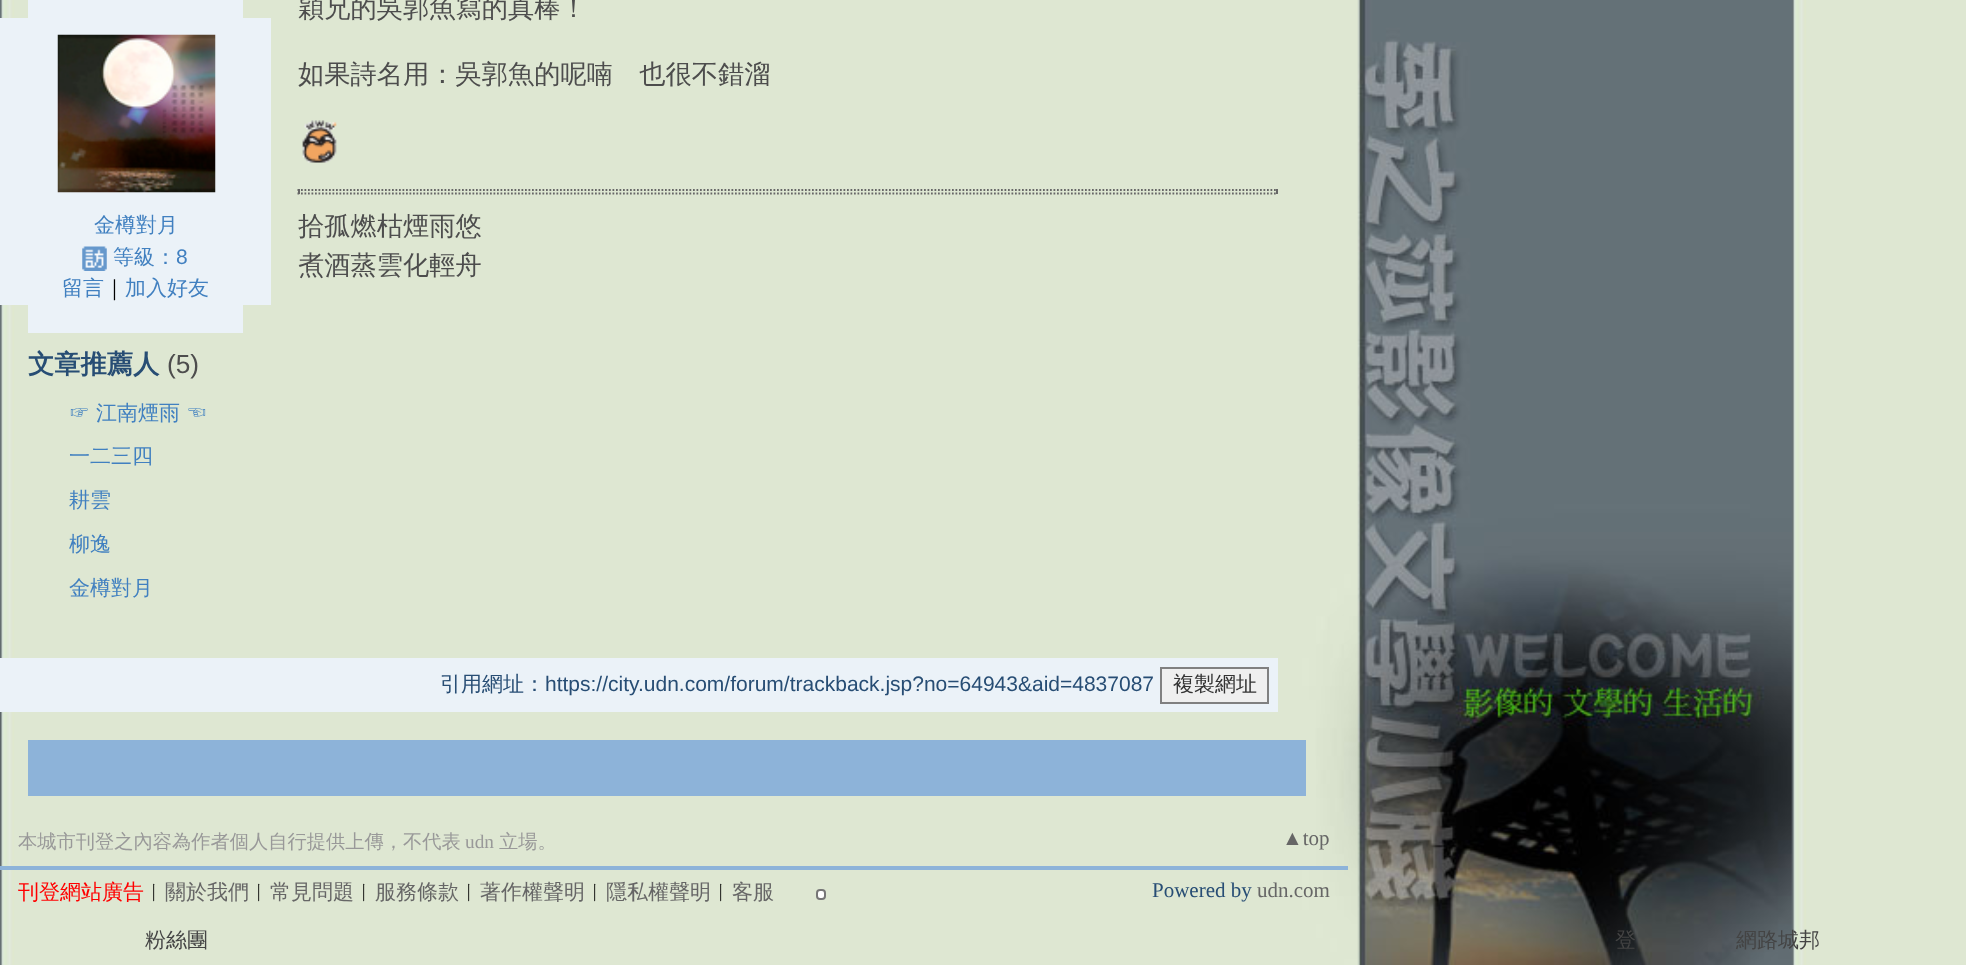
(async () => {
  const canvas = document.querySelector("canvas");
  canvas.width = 1966;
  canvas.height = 965;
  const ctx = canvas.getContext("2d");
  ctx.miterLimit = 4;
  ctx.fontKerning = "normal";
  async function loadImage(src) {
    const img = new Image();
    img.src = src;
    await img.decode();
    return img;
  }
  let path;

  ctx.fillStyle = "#ffffff";
  ctx.fillRect(0, 0, 1966, 965);
  ctx.drawImage(await loadImage("img/1.png"), 0, 0, 1966, 965);
  ctx.drawImage(await loadImage("img/2.png"), 302, 120, 35, 43);
  path = new Path2D("M297.5 190H1277.5");
  ctx.strokeStyle = "#666666";
  ctx.lineWidth = 1.8;
  ctx.setLineDash([1.75, 1.75]);
  ctx.stroke(path);
  ctx.fillStyle = "#666666";
  ctx.fillRect(1276, 189, 2, 5);
  path = new Path2D("M297.5 193.5H1277.5");
  ctx.stroke(path);
  for (const [x, y, w, h, color] of [
    [298, 189, 2, 5, "#666666"],
    [28, 0, 215, 18, "#ebf2f8"],
    [0, 18, 271, 287, "#ebf2f8"],
  ]) {
    ctx.fillStyle = color;
    ctx.fillRect(x, y, w, h);
  }
  ctx.drawImage(await loadImage("img/3.png"), 57, 34, 159, 159);
  ctx.drawImage(await loadImage("img/4.png"), 82, 246, 25, 25);
  ctx.fillRect(28, 305, 215, 28);
  ctx.fillRect(0, 658, 1278, 54);
  ctx.fillStyle = "#efefef";
  ctx.beginPath();
  ctx.rect(1161, 668, 107, 35);
  ctx.fill();
  ctx.strokeStyle = "#808080";
  ctx.lineWidth = 2;
  ctx.setLineDash([]);
  ctx.stroke();
  ctx.fillStyle = "#8db3d9";
  ctx.fillRect(28, 740, 1278, 56);
  ctx.fillRect(0, 866, 1348, 4);
  ctx.fillStyle = "#ffffff";
  ctx.beginPath();
  ctx.roundRect(817, 890, 8, 9, 3);
  ctx.fill();
  ctx.strokeStyle = "#767676";
  ctx.stroke();
  ctx.font = "500 26.25px WenQuanYi Zen Hei";
  ctx.fillStyle = "#4d4d4d";
  for (const [text, x, y] of [
    ["穎兄的吳郭魚寫的真棒！", 298, 17],
    ["如果詩名用：吳郭魚的呢喃　也很不錯溜", 298, 83],
    ["拾孤燃枯煙雨悠", 298, 235],
    ["煮酒蒸雲化輕舟", 298, 274],
  ]) {
    ctx.fillText(text, x, y);
  }
  ctx.font = "500 21px WenQuanYi Zen Hei";
  ctx.fillStyle = "#4180c0";
  ctx.fillText("金樽對月", 94, 232);
  ctx.fillText("等級：", 113, 264);
  ctx.font = "21px Liberation Sans";
  ctx.fillText("8", 176, 264);
  ctx.font = "500 21px WenQuanYi Zen Hei";
  ctx.fillText("留言", 62, 295);
  ctx.fillStyle = "#000000";
  ctx.fillText("｜", 104, 295);
  ctx.fillStyle = "#4180c0";
  ctx.fillText("加入好友", 125, 295);
  ctx.font = "bold 26.25px WenQuanYi Zen Hei";
  ctx.fillStyle = "#274d74";
  ctx.fillText("文章推薦人", 28, 373);
  ctx.font = "26.25px Liberation Sans";
  ctx.fillStyle = "#4d4d4d";
  ctx.fillText("(5)", 167, 373);
  ctx.font = "500 21px WenQuanYi Zen Hei";
  ctx.fillStyle = "#4180c0";
  for (const [text, x, y] of [
    ["☞", 69, 420],
    ["江南煙雨", 96, 420],
    ["☜", 186, 420],
    ["一二三四", 69, 463],
    ["耕雲", 69, 507],
    ["柳逸", 69, 551],
    ["金樽對月", 69, 595],
  ]) {
    ctx.fillText(text, x, y);
  }
  ctx.fillStyle = "#274d74";
  ctx.fillText("引用網址：", 440, 691);
  ctx.font = "21px Liberation Sans";
  ctx.fillText("https://city.udn.com/forum/trackback.jsp?no=64943&aid=4837087", 545, 691);
  ctx.font = "500 21px WenQuanYi Zen Hei";
  ctx.fillStyle = "#333333";
  ctx.fillText("複製網址", 1173, 691);
  ctx.font = "500 19.25px WenQuanYi Zen Hei";
  ctx.fillStyle = "#999999";
  ctx.fillText("本城市刊登之內容為作者個人自行提供上傳，不代表", 18, 848);
  ctx.font = "19.25px Liberation Serif";
  ctx.fillText("udn", 465, 848);
  ctx.font = "500 19.25px WenQuanYi Zen Hei";
  ctx.fillText("立場。", 499, 848);
  ctx.font = "21px Liberation Serif";
  ctx.fillStyle = "#666666";
  ctx.fillText("▲top", 1282, 845);
  ctx.font = "500 21px WenQuanYi Zen Hei";
  ctx.fillStyle = "#ff0000";
  ctx.fillText("刊登網站廣告", 18, 899);
  ctx.fillStyle = "#000000";
  ctx.fillText("︱", 144, 899);
  ctx.fillStyle = "#666666";
  ctx.fillText("關於我們", 165, 899);
  ctx.fillStyle = "#000000";
  ctx.fillText("︱", 249, 899);
  ctx.fillStyle = "#666666";
  ctx.fillText("常見問題", 270, 899);
  ctx.fillStyle = "#000000";
  ctx.fillText("︱", 354, 899);
  ctx.fillStyle = "#666666";
  ctx.fillText("服務條款", 375, 899);
  ctx.fillStyle = "#000000";
  ctx.fillText("︱", 459, 899);
  ctx.fillStyle = "#666666";
  ctx.fillText("著作權聲明", 480, 899);
  ctx.fillStyle = "#000000";
  ctx.fillText("︱", 585, 899);
  ctx.fillStyle = "#666666";
  ctx.fillText("隱私權聲明", 606, 899);
  ctx.fillStyle = "#000000";
  ctx.fillText("︱", 711, 899);
  ctx.fillStyle = "#666666";
  ctx.fillText("客服", 732, 899);
  ctx.font = "21px Liberation Serif";
  ctx.fillStyle = "#274d74";
  ctx.fillText("Powered by", 1152, 897);
  ctx.fillStyle = "#666666";
  ctx.fillText("udn.com", 1257, 897);
  ctx.font = "500 21px WenQuanYi Zen Hei";
  ctx.fillStyle = "#444444";
  for (const [text, x, y] of [
    ["粉絲團", 145, 947],
    ["登", 1615, 947],
    ["網路城邦", 1736, 947],
  ]) {
    ctx.fillText(text, x, y);
  }
})();
